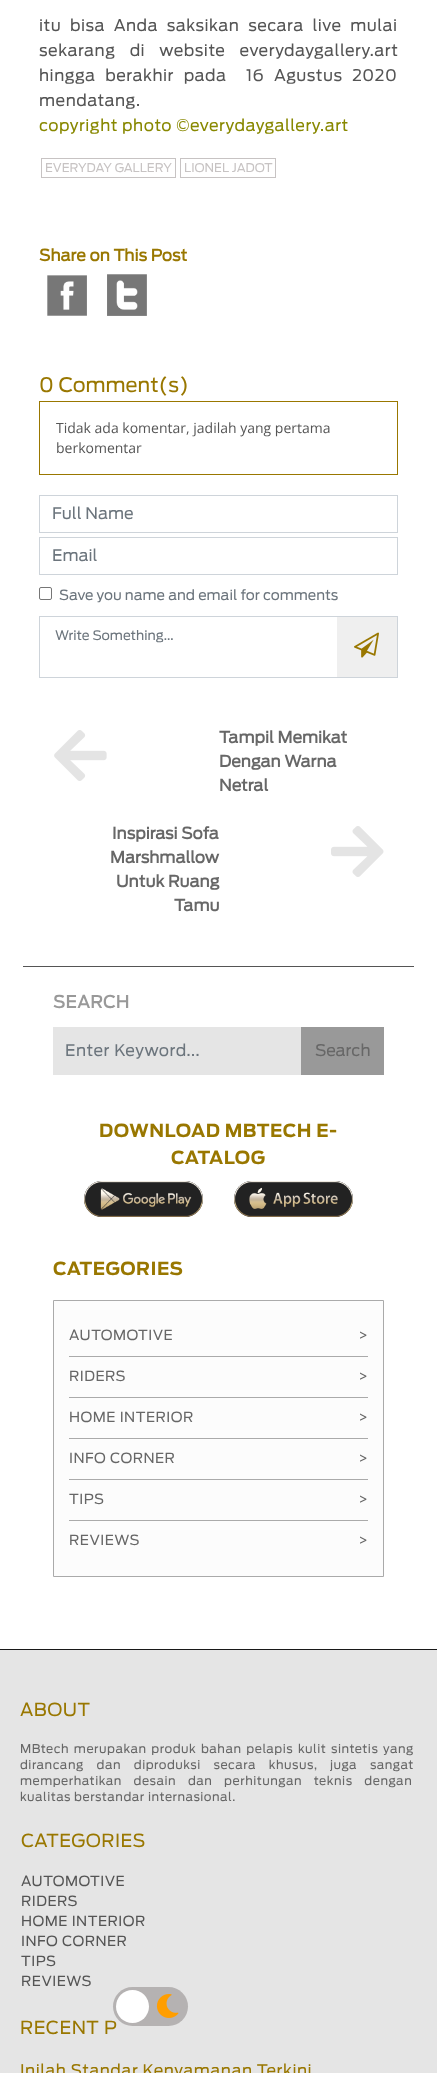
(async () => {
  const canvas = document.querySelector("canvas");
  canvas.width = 437;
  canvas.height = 2073;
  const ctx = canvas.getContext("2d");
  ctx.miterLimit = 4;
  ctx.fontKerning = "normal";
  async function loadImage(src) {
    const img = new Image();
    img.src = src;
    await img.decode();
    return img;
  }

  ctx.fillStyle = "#ffffff";
  ctx.fillRect(0, 0, 437, 2073);
  ctx.strokeStyle = "#c7c3c3";
  ctx.strokeRect(41.5, 158.5, 134, 19);
  ctx.strokeRect(180.5, 158.5, 95, 19);
  ctx.drawImage(await loadImage("img/1.png"), 47, 275, 40, 41);
  ctx.drawImage(await loadImage("img/2.png"), 107, 274, 40, 42);
  ctx.strokeStyle = "#997700";
  ctx.strokeRect(39.5, 401.5, 358, 73);
  ctx.strokeStyle = "#ced4da";
  ctx.strokeRect(39.5, 495.5, 358, 37);
  ctx.strokeRect(39.5, 537.5, 358, 37);
  ctx.beginPath();
  ctx.roundRect(39.5, 587.5, 12, 12, 1.5);
  ctx.strokeStyle = "#767676";
  ctx.stroke();
  ctx.strokeStyle = "#ced4da";
  ctx.strokeRect(39.5, 616.5, 358, 61);
  ctx.fillStyle = "#efefef";
  ctx.fillRect(337, 617, 60, 60);
  ctx.drawImage(await loadImage("img/3.png"), 354, 632, 25, 26);
  ctx.drawImage(await loadImage("img/4.png"), 54, 730, 53, 51);
  ctx.drawImage(await loadImage("img/5.png"), 331, 826, 53, 51);
  for (const [x, y, w, h, color] of [
    [23, 966, 391, 1, "#555555"],
    [53, 1027, 248, 48, "#e5e5e5"],
    [301, 1027, 83, 48, "#999999"],
  ]) {
    ctx.fillStyle = color;
    ctx.fillRect(x, y, w, h);
  }
  ctx.fillStyle = "#222222";
  ctx.beginPath();
  ctx.roundRect(84, 1181, 119, 36, 18);
  ctx.fill();
  ctx.drawImage(await loadImage("img/6.png"), 84, 1181, 119, 36);
  ctx.beginPath();
  ctx.roundRect(234, 1181, 119, 36, 18);
  ctx.fill();
  ctx.drawImage(await loadImage("img/7.png"), 234, 1181, 119, 36);
  ctx.fillStyle = "#fcfcfc";
  ctx.beginPath();
  ctx.rect(53.5, 1300.5, 330, 276);
  ctx.fill();
  ctx.strokeStyle = "#aaaaaa";
  ctx.stroke();
  for (const [x, y, w, h, color] of [
    [69, 1356, 299, 1, "#aaaaaa"],
    [69, 1397, 299, 1, "#aaaaaa"],
    [69, 1438, 299, 1, "#aaaaaa"],
    [69, 1479, 299, 1, "#aaaaaa"],
    [69, 1520, 299, 1, "#aaaaaa"],
    [0, 1650, 437, 423, "#e5e5e5"],
    [0, 1649, 437, 1, "#181818"],
  ]) {
    ctx.fillStyle = color;
    ctx.fillRect(x, y, w, h);
  }
  ctx.letterSpacing = "0.5px";
  ctx.wordSpacing = "4.5px";
  ctx.font = "16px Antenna";
  ctx.fillStyle = "#555555";
  ctx.fillText("itu bisa Anda saksikan secara live mulai", 39, 31);
  ctx.wordSpacing = "10px";
  ctx.fillText("sekarang di website everydaygallery.art", 39, 56);
  ctx.wordSpacing = "5.5px";
  ctx.fillText("hingga berakhir pada  16 Agustus 2020", 39, 81);
  ctx.wordSpacing = "0px";
  ctx.fillText("mendatang.", 39, 106);
  ctx.fillStyle = "#888800";
  ctx.fillText("copyright photo ©everydaygallery.art", 39, 131);
  ctx.letterSpacing = "0px";
  ctx.font = "12px Antenna";
  ctx.fillStyle = "#c7c3c3";
  ctx.fillText("EVERYDAY GALLERY", 45, 172);
  ctx.fillText("LIONEL JADOT", 184, 172);
  ctx.font = "bold 16px Antenna";
  ctx.fillStyle = "#997700";
  ctx.fillText("Share on This Post", 39, 261);
  ctx.font = "20px Antenna";
  ctx.fillText("0 Comment(s)", 39, 392);
  ctx.font = "14px Open Sans";
  ctx.fillStyle = "#555555";
  ctx.fillText("Tidak ada komentar, jadilah yang pertama", 56, 433);
  ctx.fillText("berkomentar", 56, 453);
  ctx.font = "16px Antenna";
  ctx.fillStyle = "#6c757d";
  ctx.fillText("Full Name", 52, 519);
  ctx.fillText("Email", 52, 561);
  ctx.font = "14px Antenna";
  ctx.fillText("Save you name and email for comments", 59, 600);
  ctx.font = "13px Antenna";
  ctx.fillText("Write Something...", 55, 640);
  ctx.font = "bold 16px Antenna";
  ctx.fillStyle = "#676767";
  for (const [text, x, y] of [
    ["Tampil Memikat", 219, 743],
    ["Dengan Warna", 219, 767],
    ["Netral", 219, 791],
    ["Inspirasi Sofa", 112, 839],
    ["Marshmallow", 110, 863],
    ["Untuk Ruang", 116, 887],
    ["Tamu", 174, 911],
  ]) {
    ctx.fillText(text, x, y);
  }
  ctx.letterSpacing = "0.5px";
  ctx.font = "bold 17px Antenna";
  ctx.fillStyle = "#999999";
  ctx.fillText("SEARCH", 53, 1008);
  ctx.font = "16px Antenna";
  ctx.fillStyle = "#6c757d";
  ctx.fillText("Enter Keyword...", 65, 1056);
  ctx.letterSpacing = "0px";
  ctx.fillStyle = "#676767";
  ctx.fillText("Search", 315, 1056);
  ctx.letterSpacing = "0.5px";
  ctx.font = "bold 18px 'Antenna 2'";
  ctx.fillStyle = "#997700";
  for (const [text, x, y] of [
    ["DOWNLOAD MBTECH E-", 99, 1137],
    ["CATALOG", 171, 1164],
    ["CATEGORIES", 53, 1275],
  ]) {
    ctx.fillText(text, x, y);
  }
  ctx.font = "14px Antenna";
  ctx.fillStyle = "#676767";
  for (const [text, x, y] of [
    ["AUTOMOTIVE", 69, 1340],
    [">", 358, 1340],
    ["RIDERS", 69, 1381],
    [">", 358, 1381],
    ["HOME INTERIOR", 69, 1422],
    [">", 358, 1422],
    ["INFO CORNER", 69, 1463],
    [">", 358, 1463],
    ["TIPS", 69, 1504],
    [">", 358, 1504],
    ["REVIEWS", 69, 1545],
    [">", 358, 1545],
  ]) {
    ctx.fillText(text, x, y);
  }
  ctx.font = "18px Antenna";
  ctx.fillStyle = "#997700";
  ctx.fillText("ABOUT", 20, 1716);
  ctx.wordSpacing = "1.5px";
  ctx.font = "12px Antenna";
  ctx.fillStyle = "#676767";
  ctx.fillText("MBtech merupakan produk bahan pelapis kulit sintetis yang", 20, 1753);
  ctx.wordSpacing = "9.5px";
  ctx.fillText("dirancang dan diproduksi secara khusus, juga sangat", 20, 1769);
  ctx.wordSpacing = "8.5px";
  ctx.fillText("memperhatikan desain dan perhitungan teknis dengan", 20, 1785);
  ctx.wordSpacing = "0px";
  ctx.fillText("kualitas berstandar internasional.", 20, 1801);
  ctx.font = "18px Antenna";
  ctx.fillStyle = "#997700";
  ctx.fillText("CATEGORIES", 21, 1847);
  ctx.font = "14px Antenna";
  ctx.fillStyle = "#555555";
  for (const [text, x, y] of [
    ["AUTOMOTIVE", 21, 1886],
    ["RIDERS", 21, 1906],
    ["HOME INTERIOR", 21, 1926],
    ["INFO CORNER", 21, 1946],
    ["TIPS", 21, 1966],
    ["REVIEWS", 21, 1986],
  ]) {
    ctx.fillText(text, x, y);
  }
  ctx.font = "18px Antenna";
  ctx.fillStyle = "#997700";
  ctx.fillText("RECENT P", 20, 2034);
  ctx.fillStyle = "#b5b2b2";
  ctx.beginPath();
  ctx.roundRect(113, 1987, 75, 39, 19.5);
  ctx.fill();
  ctx.fillStyle = "#ffffff";
  ctx.beginPath();
  ctx.arc(132.5, 2006.5, 16.5, 0, Math.PI * 2);
  ctx.fill();
  ctx.drawImage(await loadImage("img/8.png"), 156, 1994, 23, 24);
  ctx.font = "16px Antenna";
  ctx.fillStyle = "#997700";
  ctx.fillText("Inilah Standar Kenyamanan Terkini", 20, 2076);
})();
